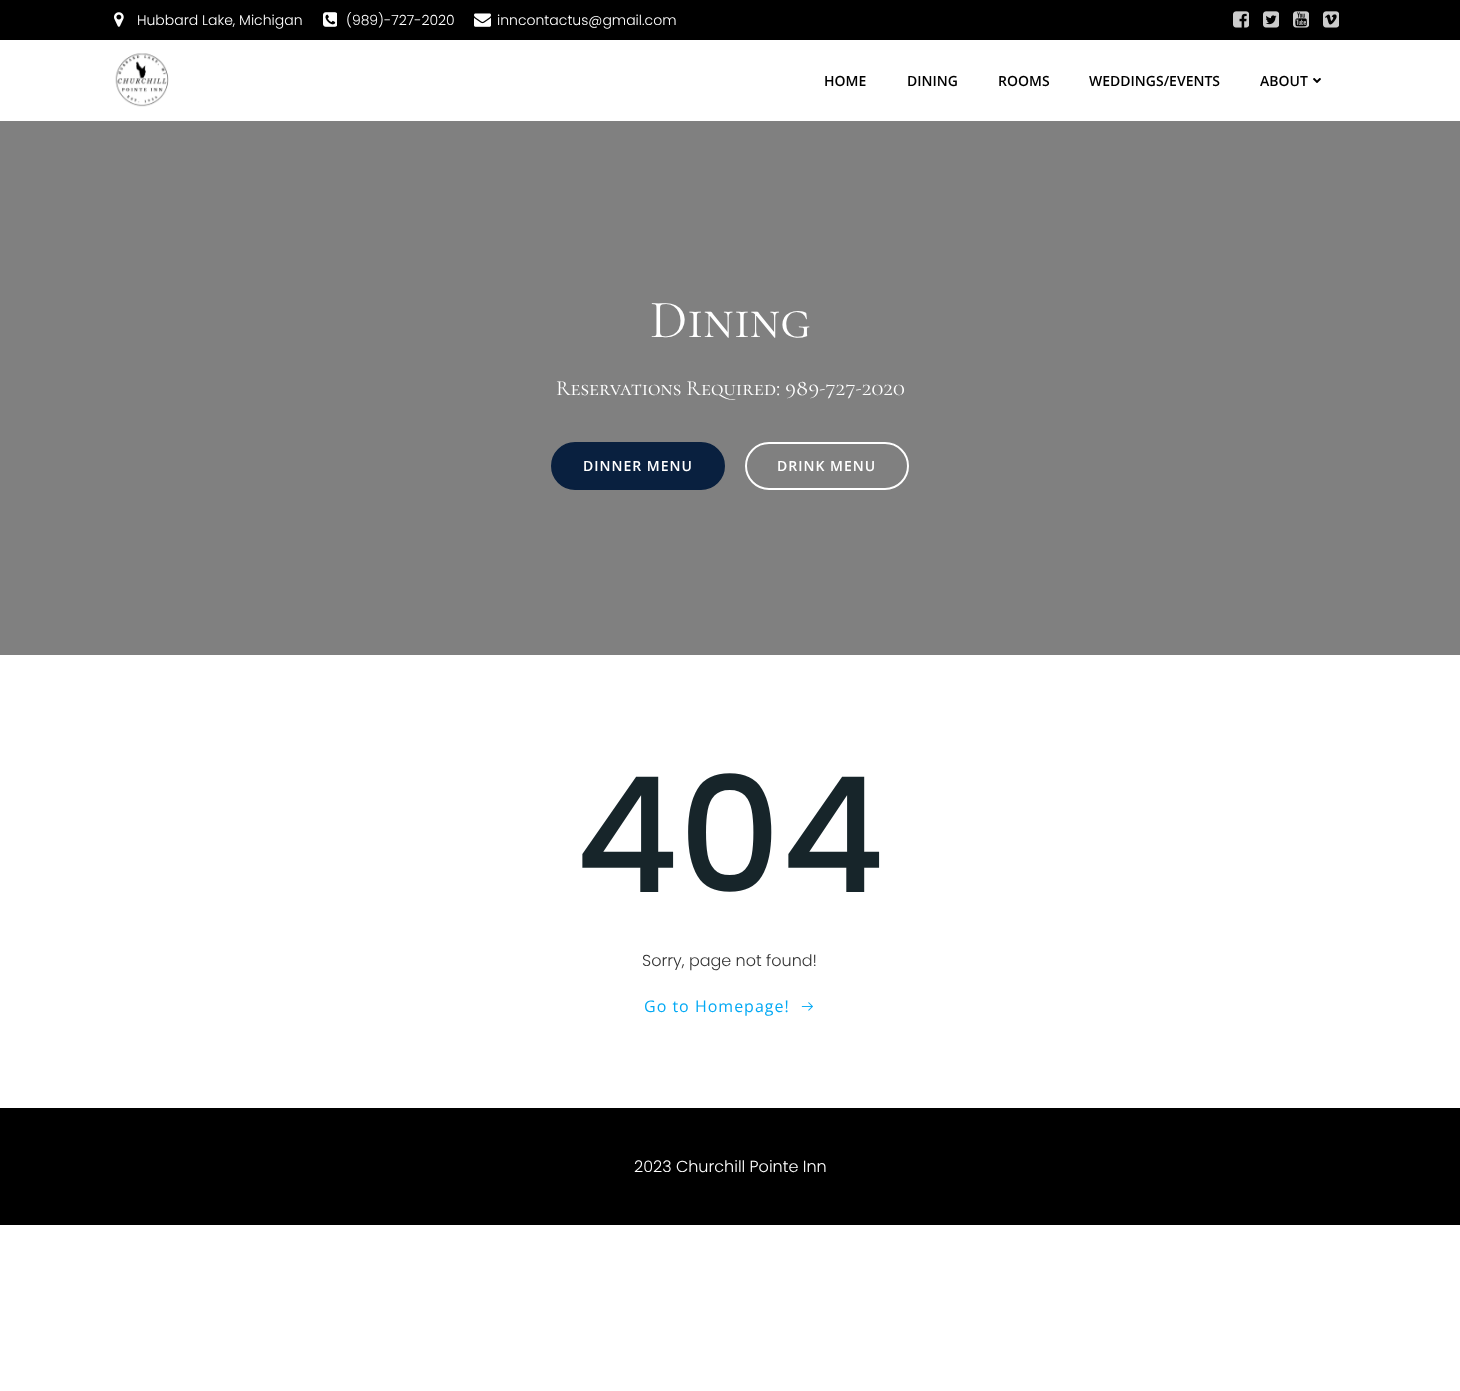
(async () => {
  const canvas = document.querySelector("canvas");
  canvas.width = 1460;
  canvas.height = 1391;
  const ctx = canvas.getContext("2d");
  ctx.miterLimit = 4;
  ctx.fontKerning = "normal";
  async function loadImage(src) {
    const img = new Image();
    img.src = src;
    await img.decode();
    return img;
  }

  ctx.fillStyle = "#ffffff";
  ctx.fillRect(0, 0, 1460, 1391);
  ctx.fillStyle = "#000000";
  ctx.fillRect(0, 0, 1460, 40);
  ctx.drawImage(await loadImage("img/1.png"), 114, 12, 10, 15);
  ctx.drawImage(await loadImage("img/2.png"), 323, 12, 14, 15);
  ctx.drawImage(await loadImage("img/3.png"), 474, 13, 17, 14);
  ctx.drawImage(await loadImage("img/4.png"), 1233, 11, 16, 17);
  ctx.drawImage(await loadImage("img/5.png"), 1263, 11, 16, 17);
  ctx.drawImage(await loadImage("img/6.png"), 1293, 11, 16, 17);
  ctx.drawImage(await loadImage("img/7.png"), 1323, 11, 16, 17);
  ctx.drawImage(await loadImage("img/8.png"), 115, 53, 54, 54);
  ctx.drawImage(await loadImage("img/9.png"), 1313, 78, 8, 5);
  ctx.fillStyle = "#808080";
  ctx.fillRect(0, 121, 1460, 534);
  ctx.fillStyle = "#09203f";
  ctx.beginPath();
  ctx.roundRect(552, 443, 172, 46, 23);
  ctx.fill();
  ctx.strokeStyle = "#09203f";
  ctx.lineWidth = 2;
  ctx.stroke();
  ctx.beginPath();
  ctx.roundRect(746, 443, 162, 46, 23);
  ctx.strokeStyle = "#ffffff";
  ctx.stroke();
  ctx.drawImage(await loadImage("img/10.png"), 801, 1002, 12, 9);
  ctx.fillStyle = "#000000";
  ctx.fillRect(0, 1108, 1460, 117);
  ctx.font = "300 14px Poppins";
  ctx.fillStyle = "#ffffff";
  for (const [text, x, y] of [
    ["Hubbard Lake, Michigan", 137, 25],
    ["(989)-727-2020", 346, 25],
    ["inncontactus@gmail.com", 497, 25],
  ]) {
    ctx.fillText(text, x, y);
  }
  ctx.font = "600 14px Open Sans";
  ctx.fillStyle = "#000000";
  for (const [text, x, y] of [
    ["HOME", 824, 86],
    ["DINING", 907, 86],
    ["ROOMS", 998, 86],
    ["WEDDINGS/EVENTS", 1089, 86],
    ["ABOUT", 1260, 86],
  ]) {
    ctx.fillText(text, x, y);
  }
  ctx.font = "54px Cormorant SC";
  ctx.fillStyle = "#ffffff";
  ctx.fillText("Dining", 650, 337);
  ctx.font = "21.6px Cormorant SC";
  ctx.fillText("Reservations Required: 989-727-2020", 556, 395);
  ctx.letterSpacing = "1px";
  ctx.font = "600 14px Open Sans";
  ctx.fillText("DINNER MENU", 583, 471);
  ctx.fillText("DRINK MENU", 777, 471);
  ctx.letterSpacing = "0px";
  ctx.font = "500 160px Poppins";
  ctx.fillStyle = "#17252a";
  ctx.fillText("404", 575, 892);
  ctx.font = "300 16px Poppins";
  ctx.fillStyle = "#333333";
  ctx.fillText("Sorry, page not found!", 642, 966);
  ctx.letterSpacing = "1px";
  ctx.font = "16px Open Sans";
  ctx.fillStyle = "#03a9f4";
  ctx.fillText("Go to Homepage!", 644, 1012);
  ctx.letterSpacing = "0px";
  ctx.font = "300 16px Poppins";
  ctx.fillStyle = "#ffffff";
  ctx.fillText("2023 Churchill Pointe Inn", 634, 1172);
})();
